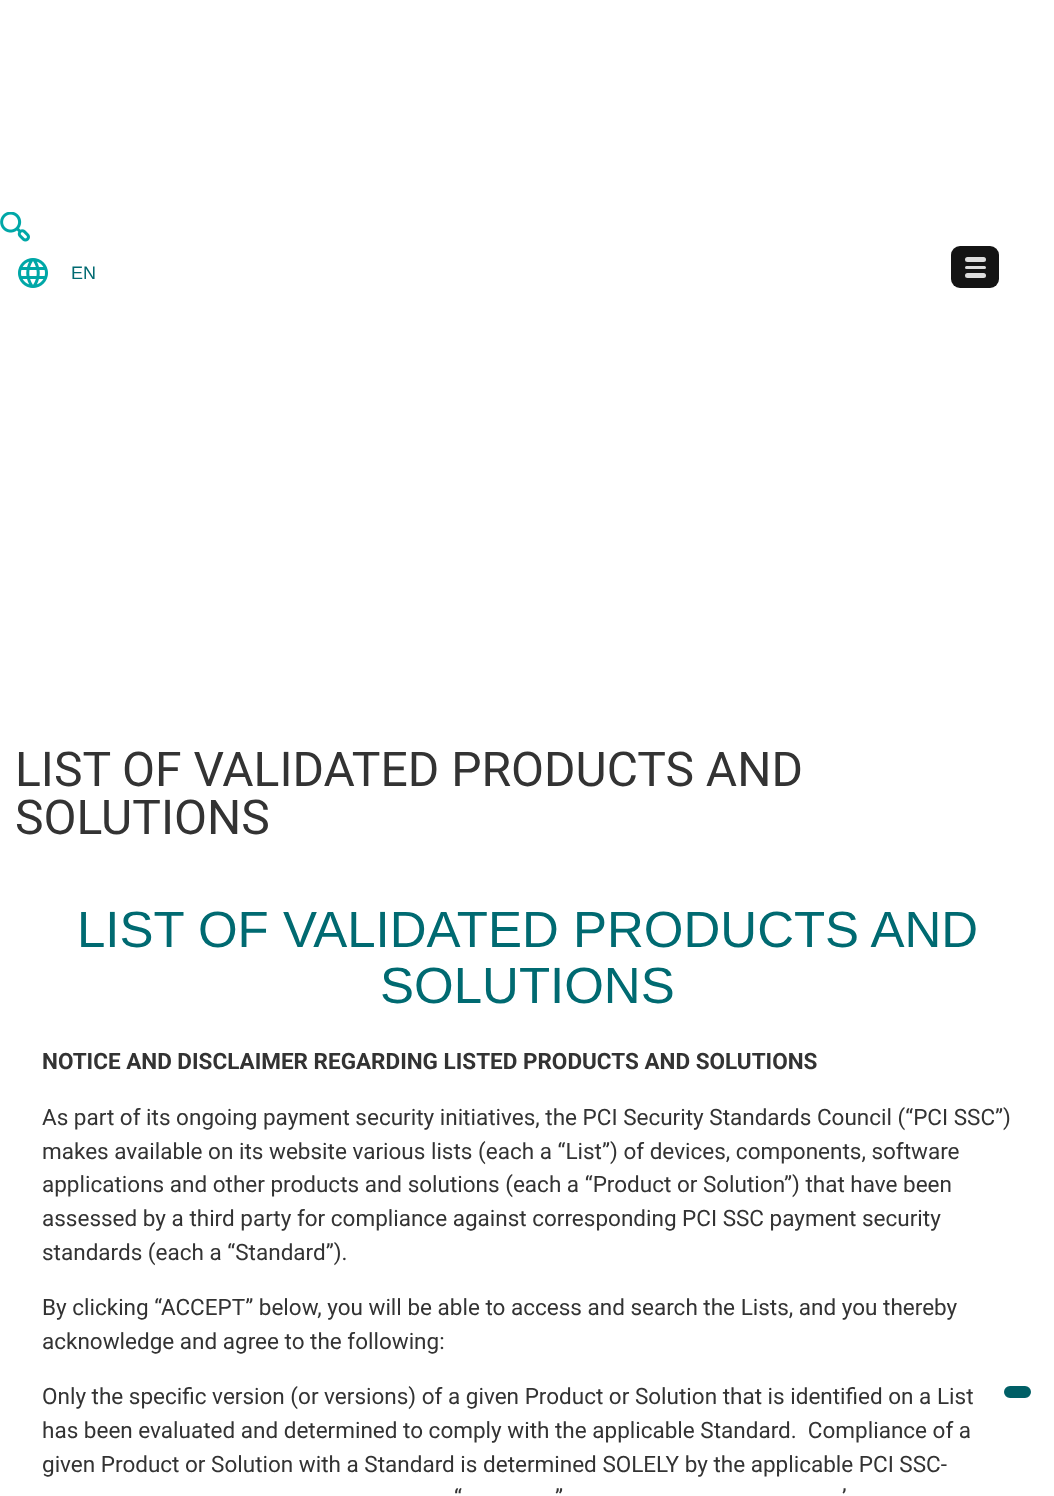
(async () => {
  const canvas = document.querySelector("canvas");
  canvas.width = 1054;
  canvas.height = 1496;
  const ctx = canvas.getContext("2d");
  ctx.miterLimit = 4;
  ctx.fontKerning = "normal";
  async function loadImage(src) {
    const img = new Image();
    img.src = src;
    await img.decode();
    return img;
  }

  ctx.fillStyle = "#ffffff";
  ctx.fillRect(0, 0, 1054, 1496);
  ctx.drawImage(await loadImage("img/1.png"), 0, 212, 30, 30);
  ctx.drawImage(await loadImage("img/2.png"), 18, 258, 30, 30);
  ctx.fillStyle = "#141414";
  ctx.beginPath();
  ctx.roundRect(951, 246, 48, 42, 9);
  ctx.fill();
  ctx.fillStyle = "#dddddd";
  ctx.beginPath();
  ctx.roundRect(965, 257, 21, 5, 2.5);
  ctx.fill();
  ctx.beginPath();
  ctx.roundRect(965, 266, 21, 3, 1.5);
  ctx.fill();
  ctx.beginPath();
  ctx.roundRect(965, 273, 21, 5, 2.5);
  ctx.fill();
  ctx.fillStyle = "#005f66";
  ctx.beginPath();
  ctx.roundRect(1005, 1387, 25, 10, 5);
  ctx.fill();
  ctx.strokeStyle = "#005f66";
  ctx.lineWidth = 2;
  ctx.stroke();
  ctx.font = "18px Liberation Sans";
  ctx.fillStyle = "#006a71";
  ctx.fillText("EN", 71, 279);
  ctx.font = "48px Roboto";
  ctx.fillStyle = "#333333";
  ctx.fillText("LIST OF VALIDATED PRODUCTS AND", 15, 786);
  ctx.fillText("SOLUTIONS", 15, 834);
  ctx.font = "51px Liberation Sans";
  ctx.fillStyle = "#006a71";
  ctx.fillText("LIST OF VALIDATED PRODUCTS AND", 77, 947);
  ctx.fillText("SOLUTIONS", 380, 1003);
  ctx.font = "bold 22.5px Roboto";
  ctx.fillStyle = "#333333";
  ctx.fillText("NOTICE AND DISCLAIMER REGARDING LISTED PRODUCTS AND SOLUTIONS", 42, 1069);
  ctx.font = "22.5px Roboto";
  for (const [text, x, y] of [
    ["As part of its ongoing payment security initiatives, the PCI Security Standards Council (“PCI SSC”)", 42, 1125],
    ["makes available on its website various lists (each a “List”) of devices, components, software", 42, 1159],
    ["applications and other products and solutions (each a “Product or Solution”) that have been", 42, 1192],
    ["assessed by a third party for compliance against corresponding PCI SSC payment security", 42, 1226],
    ["standards (each a “Standard”).", 42, 1260],
    ["By clicking “ACCEPT” below, you will be able to access and search the Lists, and you thereby", 42, 1315],
    ["acknowledge and agree to the following:", 42, 1349],
    ["Only the specific version (or versions) of a given Product or Solution that is identified on a List", 42, 1404],
    ["has been evaluated and determined to comply with the applicable Standard.  Compliance of a", 42, 1438],
    ["given Product or Solution with a Standard is determined SOLELY by the applicable PCI SSC-", 42, 1472],
    ["“", 454, 1505],
    ["”", 555, 1505],
    ["’", 842, 1505],
  ]) {
    ctx.fillText(text, x, y);
  }
})();
